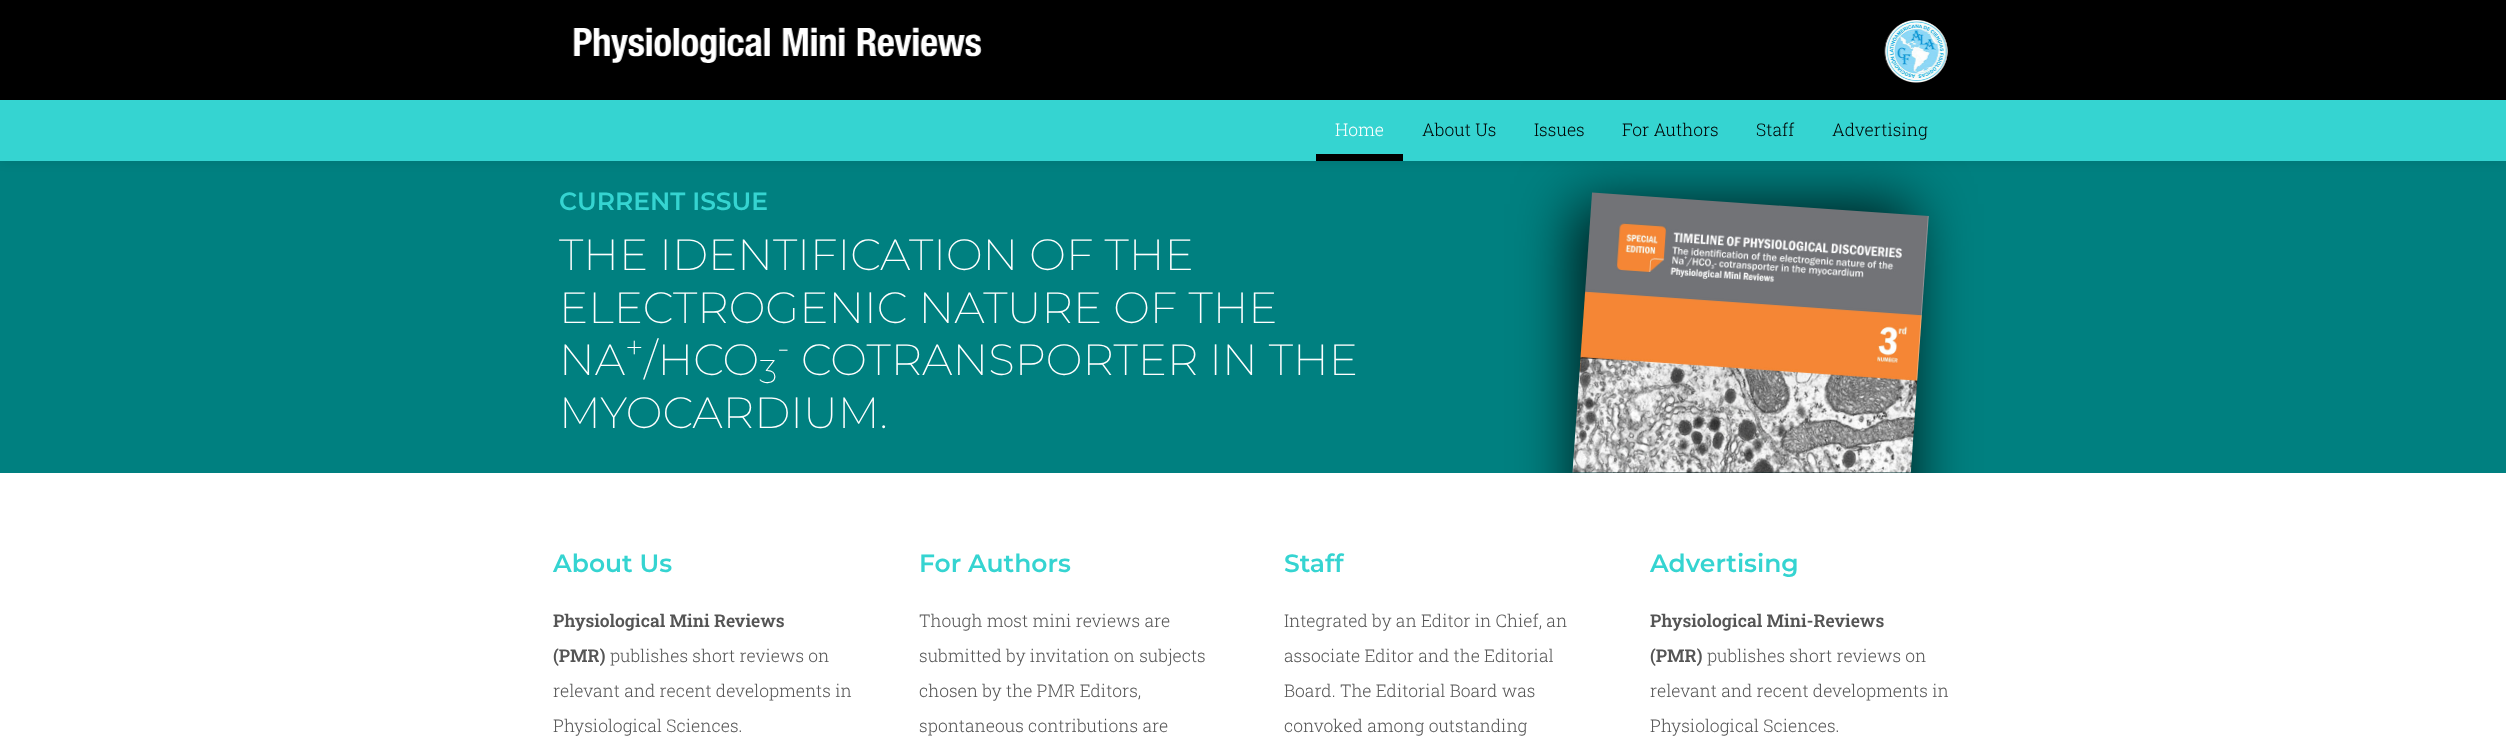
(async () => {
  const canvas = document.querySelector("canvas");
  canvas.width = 2506;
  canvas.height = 749;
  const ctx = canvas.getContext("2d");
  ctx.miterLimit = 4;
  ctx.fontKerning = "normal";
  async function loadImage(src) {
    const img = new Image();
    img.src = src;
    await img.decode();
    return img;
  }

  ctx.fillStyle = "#ffffff";
  ctx.fillRect(0, 0, 2506, 749);
  ctx.fillStyle = "#000000";
  ctx.fillRect(0, 0, 2506, 100);
  ctx.drawImage(await loadImage("img/1.png"), 573, 27, 409, 36);
  ctx.drawImage(await loadImage("img/2.png"), 1884, 20, 64, 63);
  ctx.fillStyle = "#008080";
  ctx.fillRect(0, 161, 2506, 312);
  ctx.fillStyle = "rgba(0, 0, 0, 0.1)";
  ctx.filter = "blur(6px)";
  ctx.beginPath();
  ctx.rect(0, 100, 2506, 61);
  ctx.fill();
  ctx.filter = "none";
  ctx.save();
  ctx.beginPath();
  ctx.rect(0, 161, 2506, 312);
  ctx.clip();
  ctx.fillStyle = "rgba(0, 0, 0, 0.8)";
  ctx.filter = "blur(30px)";
  ctx.beginPath();
  ctx.rect(1575, 204, 338, 477);
  ctx.fill();
  ctx.filter = "none";
  ctx.restore();
  ctx.fillStyle = "#35d4d1";
  ctx.fillRect(0, 100, 2506, 61);
  ctx.fillStyle = "#000000";
  ctx.fillRect(1316, 154, 87, 7);
  ctx.drawImage(await loadImage("img/3.png"), 1572, 192, 357, 281);
  ctx.font = "300 17.5px Roboto Slab";
  ctx.fillStyle = "#ffffff";
  ctx.fillText("Home", 1335, 136);
  ctx.fillStyle = "#000000";
  for (const [text, x, y] of [
    ["About Us", 1422, 136],
    ["Issues", 1534, 136],
    ["For Authors", 1622, 136],
    ["Staff", 1756, 136],
    ["Advertising", 1832, 136],
  ]) {
    ctx.fillText(text, x, y);
  }
  ctx.font = "600 25px Montserrat";
  ctx.fillStyle = "#35d4d1";
  ctx.fillText("CURRENT ISSUE", 559, 210);
  ctx.font = "200 43.75px Montserrat";
  ctx.fillStyle = "#ffffff";
  for (const [text, x, y] of [
    ["THE IDENTIFICATION OF THE", 559, 270],
    ["ELECTROGENIC NATURE OF THE", 559, 323],
    ["NA", 559, 375],
  ]) {
    ctx.fillText(text, x, y);
  }
  ctx.font = "200 33px Montserrat";
  ctx.fillText("+", 625, 359);
  ctx.font = "200 43.75px Montserrat";
  ctx.fillText("/HCO", 644, 375);
  ctx.font = "200 33px Montserrat";
  ctx.fillText("-", 777, 359);
  ctx.font = "200 43.75px Montserrat";
  ctx.fillText("COTRANSPORTER IN THE", 801, 375);
  ctx.font = "200 33px Montserrat";
  ctx.fillText("3", 759, 383);
  ctx.font = "200 43.75px Montserrat";
  ctx.fillText("MYOCARDIUM.", 559, 428);
  ctx.font = "600 25px Montserrat";
  ctx.fillStyle = "#35d4d1";
  ctx.fillText("About Us", 553, 572);
  ctx.font = "600 17.5px Roboto Slab";
  ctx.fillStyle = "#555555";
  ctx.fillText("Physiological Mini Reviews", 553, 627);
  ctx.fillText("(PMR)", 553, 662);
  ctx.font = "300 17.5px Roboto Slab";
  for (const [text, x, y] of [
    ["publishes short reviews on", 610, 662],
    ["relevant and recent developments in", 553, 697],
    ["Physiological Sciences.", 553, 732],
  ]) {
    ctx.fillText(text, x, y);
  }
  ctx.font = "600 25px Montserrat";
  ctx.fillStyle = "#35d4d1";
  ctx.fillText("For Authors", 919, 572);
  ctx.font = "300 17.5px Roboto Slab";
  ctx.fillStyle = "#555555";
  for (const [text, x, y] of [
    ["Though most mini reviews are", 919, 627],
    ["submitted by invitation on subjects", 919, 662],
    ["chosen by the PMR Editors,", 919, 697],
    ["spontaneous contributions are", 919, 732],
  ]) {
    ctx.fillText(text, x, y);
  }
  ctx.font = "600 25px Montserrat";
  ctx.fillStyle = "#35d4d1";
  ctx.fillText("Staff", 1284, 572);
  ctx.font = "300 17.5px Roboto Slab";
  ctx.fillStyle = "#555555";
  for (const [text, x, y] of [
    ["Integrated by an Editor in Chief, an", 1284, 627],
    ["associate Editor and the Editorial", 1284, 662],
    ["Board. The Editorial Board was", 1284, 697],
    ["convoked among outstanding", 1284, 732],
  ]) {
    ctx.fillText(text, x, y);
  }
  ctx.font = "600 25px Montserrat";
  ctx.fillStyle = "#35d4d1";
  ctx.fillText("Advertising", 1650, 572);
  ctx.font = "600 17.5px Roboto Slab";
  ctx.fillStyle = "#555555";
  ctx.fillText("Physiological Mini-Reviews", 1650, 627);
  ctx.fillText("(PMR)", 1650, 662);
  ctx.font = "300 17.5px Roboto Slab";
  for (const [text, x, y] of [
    ["publishes short reviews on", 1707, 662],
    ["relevant and recent developments in", 1650, 697],
    ["Physiological Sciences.", 1650, 732],
  ]) {
    ctx.fillText(text, x, y);
  }
})();
